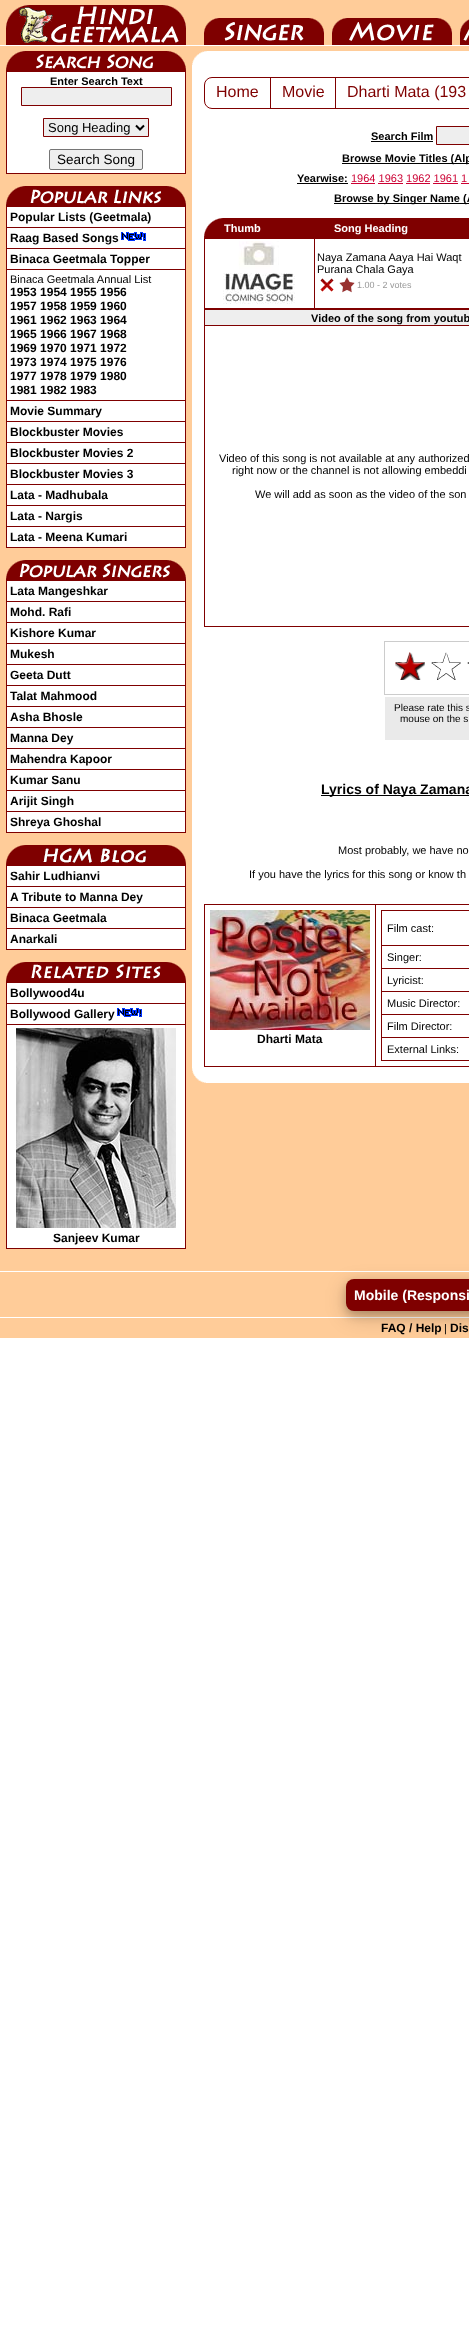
(async () => {
  const canvas = document.querySelector("canvas");
  canvas.width = 469;
  canvas.height = 2348;
  const ctx = canvas.getContext("2d");
  ctx.miterLimit = 4;
  ctx.fontKerning = "normal";
  async function loadImage(src) {
    const img = new Image();
    img.src = src;
    await img.decode();
    return img;
  }
  let path;

  ctx.fillStyle = "#ffffff";
  ctx.fillRect(0, 0, 469, 2348);
  ctx.drawImage(await loadImage("img/1.png"), 0, 0, 469, 45);
  for (const [x, y, w, h, color] of [
    [0, 46, 469, 5, "#ffcc99"],
    [0, 51, 6, 1210, "#ffcc99"],
    [6, 174, 180, 1087, "#ffcc99"],
  ]) {
    ctx.fillStyle = color;
    ctx.fillRect(x, y, w, h);
  }
  ctx.drawImage(await loadImage("img/2.png"), 6, 51, 180, 20);
  for (const [x, y, w, h, color] of [
    [6, 71, 180, 1, "#7f0000"],
    [185, 71, 1, 103, "#7f0000"],
    [6, 173, 180, 1, "#7f0000"],
    [6, 71, 1, 103, "#7f0000"],
  ]) {
    ctx.fillStyle = color;
    ctx.fillRect(x, y, w, h);
  }
  ctx.fillStyle = "#eeeeee";
  ctx.beginPath();
  ctx.rect(21.5, 87.5, 150, 18);
  ctx.fill();
  ctx.strokeStyle = "#7f0000";
  ctx.stroke();
  ctx.beginPath();
  ctx.rect(43.5, 118.5, 105, 18);
  ctx.fill();
  ctx.stroke();
  path = new Path2D("M136 125.5L140 129.5L144 125.5");
  ctx.strokeStyle = "#000000";
  ctx.lineWidth = 2;
  ctx.stroke(path);
  ctx.fillStyle = "#efefef";
  ctx.beginPath();
  ctx.roundRect(49.5, 149.5, 93, 20, 1.5);
  ctx.fill();
  ctx.strokeStyle = "#767676";
  ctx.lineWidth = 1;
  ctx.stroke();
  ctx.drawImage(await loadImage("img/3.png"), 6, 186, 180, 20);
  for (const [x, y, w, h, color] of [
    [7, 207, 178, 340, "#ffffff"],
    [6, 206, 180, 1, "#7f0000"],
    [185, 206, 1, 342, "#7f0000"],
    [6, 547, 180, 1, "#7f0000"],
    [6, 206, 1, 342, "#7f0000"],
    [6, 227, 180, 1, "#7f0000"],
  ]) {
    ctx.fillStyle = color;
    ctx.fillRect(x, y, w, h);
  }
  ctx.drawImage(await loadImage("img/4.png"), 121, 232, 25, 9);
  for (const [x, y, w, h, color] of [
    [6, 248, 180, 1, "#7f0000"],
    [6, 269, 180, 1, "#7f0000"],
    [6, 400, 180, 1, "#7f0000"],
    [6, 421, 180, 1, "#7f0000"],
    [6, 442, 180, 1, "#7f0000"],
    [6, 463, 180, 1, "#7f0000"],
    [6, 484, 180, 1, "#7f0000"],
    [6, 505, 180, 1, "#7f0000"],
    [6, 526, 180, 1, "#7f0000"],
  ]) {
    ctx.fillStyle = color;
    ctx.fillRect(x, y, w, h);
  }
  ctx.drawImage(await loadImage("img/5.png"), 6, 560, 180, 20);
  for (const [x, y, w, h, color] of [
    [7, 581, 178, 251, "#ffffff"],
    [6, 580, 180, 1, "#7f0000"],
    [185, 580, 1, 253, "#7f0000"],
    [6, 832, 180, 1, "#7f0000"],
    [6, 580, 1, 253, "#7f0000"],
    [6, 601, 180, 1, "#7f0000"],
    [6, 622, 180, 1, "#7f0000"],
    [6, 643, 180, 1, "#7f0000"],
    [6, 664, 180, 1, "#7f0000"],
    [6, 685, 180, 1, "#7f0000"],
    [6, 706, 180, 1, "#7f0000"],
    [6, 727, 180, 1, "#7f0000"],
    [6, 748, 180, 1, "#7f0000"],
    [6, 769, 180, 1, "#7f0000"],
    [6, 790, 180, 1, "#7f0000"],
    [6, 811, 180, 1, "#7f0000"],
  ]) {
    ctx.fillStyle = color;
    ctx.fillRect(x, y, w, h);
  }
  ctx.drawImage(await loadImage("img/6.png"), 6, 845, 180, 20);
  for (const [x, y, w, h, color] of [
    [7, 866, 178, 83, "#ffffff"],
    [6, 865, 180, 1, "#7f0000"],
    [185, 865, 1, 85, "#7f0000"],
    [6, 949, 180, 1, "#7f0000"],
    [6, 865, 1, 85, "#7f0000"],
    [6, 886, 180, 1, "#7f0000"],
    [6, 907, 180, 1, "#7f0000"],
    [6, 928, 180, 1, "#7f0000"],
  ]) {
    ctx.fillStyle = color;
    ctx.fillRect(x, y, w, h);
  }
  ctx.drawImage(await loadImage("img/7.png"), 6, 962, 180, 20);
  for (const [x, y, w, h, color] of [
    [7, 983, 178, 265, "#ffffff"],
    [6, 982, 180, 1, "#7f0000"],
    [185, 982, 1, 267, "#7f0000"],
    [6, 1248, 180, 1, "#7f0000"],
    [6, 982, 1, 267, "#7f0000"],
    [6, 1003, 180, 1, "#7f0000"],
  ]) {
    ctx.fillStyle = color;
    ctx.fillRect(x, y, w, h);
  }
  ctx.drawImage(await loadImage("img/4.png"), 117, 1008, 25, 9);
  ctx.fillRect(6, 1024, 180, 1);
  ctx.drawImage(await loadImage("img/8.png"), 16, 1028, 160, 200);
  ctx.fillStyle = "#ffcc99";
  ctx.fillRect(186, 51, 6, 1210);
  ctx.fillRect(192, 1083, 277, 178);
  ctx.drawImage(await loadImage("img/9.png"), 192, 51, 15, 14);
  ctx.beginPath();
  ctx.roundRect(204.5, 77.5, 66, 31, [7.5, 0, 0, 7.5]);
  ctx.strokeStyle = "#7f0000";
  ctx.stroke();
  ctx.strokeRect(270.5, 77.5, 65, 31);
  ctx.strokeRect(335.5, 77.5, 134, 31);
  ctx.fillStyle = "#000000";
  ctx.fillRect(371, 141, 62, 1);
  ctx.fillStyle = "#eeeeee";
  ctx.beginPath();
  ctx.rect(436.5, 126.5, 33, 18);
  ctx.fill();
  ctx.stroke();
  for (const [x, y, w, h, color] of [
    [342, 163, 127, 1, "#000000"],
    [297, 183, 51, 1, "#000000"],
    [351, 183, 24, 1, "#cc0033"],
    [378, 183, 25, 1, "#cc0033"],
    [406, 183, 24, 1, "#cc0033"],
    [433, 183, 25, 1, "#cc0033"],
    [461, 183, 8, 1, "#cc0033"],
    [334, 203, 135, 1, "#000000"],
  ]) {
    ctx.fillStyle = color;
    ctx.fillRect(x, y, w, h);
  }
  ctx.drawImage(await loadImage("img/10.png"), 204, 218, 20, 20);
  for (const [x, y, w, h, color] of [
    [224, 218, 245, 20, "#7f0000"],
    [204, 238, 265, 1, "#7f0000"],
    [204, 308, 265, 2, "#7f0000"],
    [204, 238, 1, 71, "#7f0000"],
  ]) {
    ctx.fillStyle = color;
    ctx.fillRect(x, y, w, h);
  }
  ctx.drawImage(await loadImage("img/11.png"), 223, 241, 72, 63);
  ctx.fillRect(314, 238, 1, 71);
  ctx.drawImage(await loadImage("img/12.png"), 320, 278, 14, 14);
  ctx.drawImage(await loadImage("img/13.png"), 339, 277, 16, 16);
  for (const [x, y, w, h, color] of [
    [204, 626, 265, 1, "#7f0000"],
    [204, 309, 1, 318, "#7f0000"],
    [205, 310, 264, 15, "#eeeeee"],
    [204, 325, 265, 1, "#7f0000"],
  ]) {
    ctx.fillStyle = color;
    ctx.fillRect(x, y, w, h);
  }
  ctx.strokeStyle = "#cccccc";
  ctx.strokeRect(384.5, 641.5, 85, 53);
  ctx.drawImage(await loadImage("img/14.png"), 395, 652, 30, 28);
  ctx.drawImage(await loadImage("img/15.png"), 431, 652, 30, 28);
  ctx.drawImage(await loadImage("img/16.png"), 467, 662, 2, 2);
  for (const [x, y, w, h, color] of [
    [385, 697, 84, 43, "#eaeaea"],
    [321, 795, 148, 1, "#000000"],
    [204, 904, 265, 1, "#7f0000"],
    [204, 1066, 265, 1, "#7f0000"],
    [204, 904, 1, 163, "#7f0000"],
  ]) {
    ctx.fillStyle = color;
    ctx.fillRect(x, y, w, h);
  }
  ctx.drawImage(await loadImage("img/17.png"), 210, 910, 160, 120);
  for (const [x, y, w, h, color] of [
    [375, 904, 1, 163, "#7f0000"],
    [381, 910, 88, 1, "#7f0000"],
    [381, 1060, 88, 1, "#7f0000"],
    [381, 910, 1, 151, "#7f0000"],
    [381, 945, 88, 1, "#7f0000"],
    [381, 968, 88, 1, "#7f0000"],
    [381, 991, 88, 1, "#7f0000"],
    [381, 1014, 88, 1, "#7f0000"],
    [381, 1037, 88, 1, "#7f0000"],
  ]) {
    ctx.fillStyle = color;
    ctx.fillRect(x, y, w, h);
  }
  ctx.drawImage(await loadImage("img/18.png"), 192, 1068, 14, 15);
  for (const [x, y, w, h, color] of [
    [0, 1261, 469, 10, "#ffcc99"],
    [0, 1272, 469, 45, "#ffcc99"],
    [0, 1318, 469, 20, "#ffcc99"],
  ]) {
    ctx.fillStyle = color;
    ctx.fillRect(x, y, w, h);
  }
  ctx.fillStyle = "rgba(0, 0, 0, 0.19)";
  ctx.filter = "blur(10px)";
  ctx.beginPath();
  ctx.roundRect(346, 1285, 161, 32, 8);
  ctx.fill();
  ctx.filter = "none";
  ctx.fillStyle = "rgba(0, 0, 0, 0.2)";
  ctx.filter = "blur(4px)";
  ctx.beginPath();
  ctx.roundRect(346, 1283, 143, 32, 8);
  ctx.fill();
  ctx.filter = "none";
  ctx.fillStyle = "#7f0000";
  ctx.beginPath();
  ctx.roundRect(346, 1279, 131, 32, 8);
  ctx.fill();
  ctx.font = "bold 11px Liberation Sans";
  ctx.fillStyle = "#000000";
  ctx.fillText("Enter Search Text", 50, 85);
  ctx.font = "13px Liberation Sans";
  ctx.fillText("Song Heading", 48, 132);
  ctx.font = "13.5px Liberation Sans";
  ctx.fillText("Search Song", 57, 164);
  ctx.font = "bold 12px Liberation Sans";
  for (const [text, x, y] of [
    ["Popular Lists (Geetmala)", 10, 221],
    ["Raag Based Songs", 10, 242],
    ["Binaca Geetmala Topper", 10, 263],
  ]) {
    ctx.fillText(text, x, y);
  }
  ctx.font = "11px Liberation Sans";
  ctx.fillText("Binaca Geetmala Annual List", 10, 283);
  ctx.font = "bold 12px Liberation Sans";
  for (const [text, x, y] of [
    ["1953 1954 1955 1956", 10, 296],
    ["1957 1958 1959 1960", 10, 310],
    ["1961 1962 1963 1964", 10, 324],
    ["1965 1966 1967 1968", 10, 338],
    ["1969 1970 1971 1972", 10, 352],
    ["1973 1974 1975 1976", 10, 366],
    ["1977 1978 1979 1980", 10, 380],
    ["1981 1982 1983", 10, 394],
    ["Movie Summary", 10, 415],
    ["Blockbuster Movies", 10, 436],
    ["Blockbuster Movies 2", 10, 457],
    ["Blockbuster Movies 3", 10, 478],
    ["Lata - Madhubala", 10, 499],
    ["Lata - Nargis", 10, 520],
    ["Lata - Meena Kumari", 10, 541],
    ["Lata Mangeshkar", 10, 595],
    ["Mohd. Rafi", 10, 616],
    ["Kishore Kumar", 10, 637],
    ["Mukesh", 10, 658],
    ["Geeta Dutt", 10, 679],
    ["Talat Mahmood", 10, 700],
    ["Asha Bhosle", 10, 721],
    ["Manna Dey", 10, 742],
    ["Mahendra Kapoor", 10, 763],
    ["Kumar Sanu", 10, 784],
    ["Arijit Singh", 10, 805],
    ["Shreya Ghoshal", 10, 826],
    ["Sahir Ludhianvi", 10, 880],
    ["A Tribute to Manna Dey", 10, 901],
    ["Binaca Geetmala", 10, 922],
    ["Anarkali", 10, 943],
    ["Bollywood4u", 10, 997],
    ["Bollywood Gallery", 10, 1018],
    ["Sanjeev Kumar", 53, 1242],
  ]) {
    ctx.fillText(text, x, y);
  }
  ctx.font = "16px Liberation Sans";
  ctx.fillStyle = "#7f0000";
  for (const [text, x, y] of [
    ["Home", 216, 97],
    ["Movie", 282, 97],
    ["Dharti Mata (193", 347, 97],
  ]) {
    ctx.fillText(text, x, y);
  }
  ctx.font = "bold 11px Liberation Sans";
  ctx.fillStyle = "#000000";
  for (const [text, x, y] of [
    ["Search Film", 371, 140],
    ["Browse Movie Titles (Alp", 342, 162],
    ["Yearwise:", 297, 182],
  ]) {
    ctx.fillText(text, x, y);
  }
  ctx.font = "11px Liberation Sans";
  ctx.fillStyle = "#cc0033";
  ctx.fillText("1964 1963 1962 1961 1", 351, 182);
  ctx.font = "bold 11px Liberation Sans";
  ctx.fillStyle = "#000000";
  ctx.fillText("Browse by Singer Name (A", 334, 202);
  ctx.fillStyle = "#ffffff";
  ctx.fillText("Thumb", 224, 232);
  ctx.fillText("Song Heading", 334, 232);
  ctx.font = "11px Liberation Sans";
  ctx.fillStyle = "#000000";
  ctx.fillText("Naya Zamana Aaya Hai Waqt", 317, 261);
  ctx.fillText("Purana Chala Gaya", 317, 273);
  ctx.font = "9px Liberation Sans";
  ctx.fillStyle = "#999999";
  ctx.fillText("1.00 - 2 votes", 357, 288);
  ctx.font = "bold 11px Liberation Sans";
  ctx.fillStyle = "#000000";
  ctx.fillText("Video of the song from youtub", 311, 322);
  ctx.font = "11px Liberation Sans";
  for (const [text, x, y] of [
    ["Video of this song is not available at any authorized", 219, 462],
    ["right now or the channel is not allowing embeddi", 232, 474],
    ["We will add as soon as the video of the son", 255, 498],
  ]) {
    ctx.fillText(text, x, y);
  }
  ctx.font = "10px Liberation Sans";
  ctx.fillText("Please rate this s", 394, 711);
  ctx.fillText("mouse on the s", 400, 722);
  ctx.font = "bold 14px Liberation Sans";
  ctx.fillText("Lyrics of Naya Zamana", 321, 794);
  ctx.font = "11px Liberation Sans";
  ctx.fillText("Most probably, we have no", 338, 854);
  ctx.fillText("If you have the lyrics for this song or know th", 249, 878);
  ctx.font = "bold 12px Liberation Sans";
  ctx.fillText("Dharti Mata", 257, 1043);
  ctx.font = "11px Liberation Sans";
  for (const [text, x, y] of [
    ["Film cast:", 387, 932],
    ["Singer:", 387, 961],
    ["Lyricist:", 387, 984],
    ["Music Director:", 387, 1007],
    ["Film Director:", 387, 1030],
    ["External Links:", 387, 1053],
  ]) {
    ctx.fillText(text, x, y);
  }
  ctx.font = "bold 14px Liberation Sans";
  ctx.fillStyle = "#ffffff";
  ctx.fillText("Mobile (Responsi", 354, 1300);
  ctx.font = "bold 12px Liberation Sans";
  ctx.fillStyle = "#000000";
  ctx.fillText("FAQ / Help", 381, 1332);
  ctx.font = "11px Liberation Sans";
  ctx.fillText("|", 444, 1332);
  ctx.font = "bold 12px Liberation Sans";
  ctx.fillText("Dis", 450, 1332);
})();
